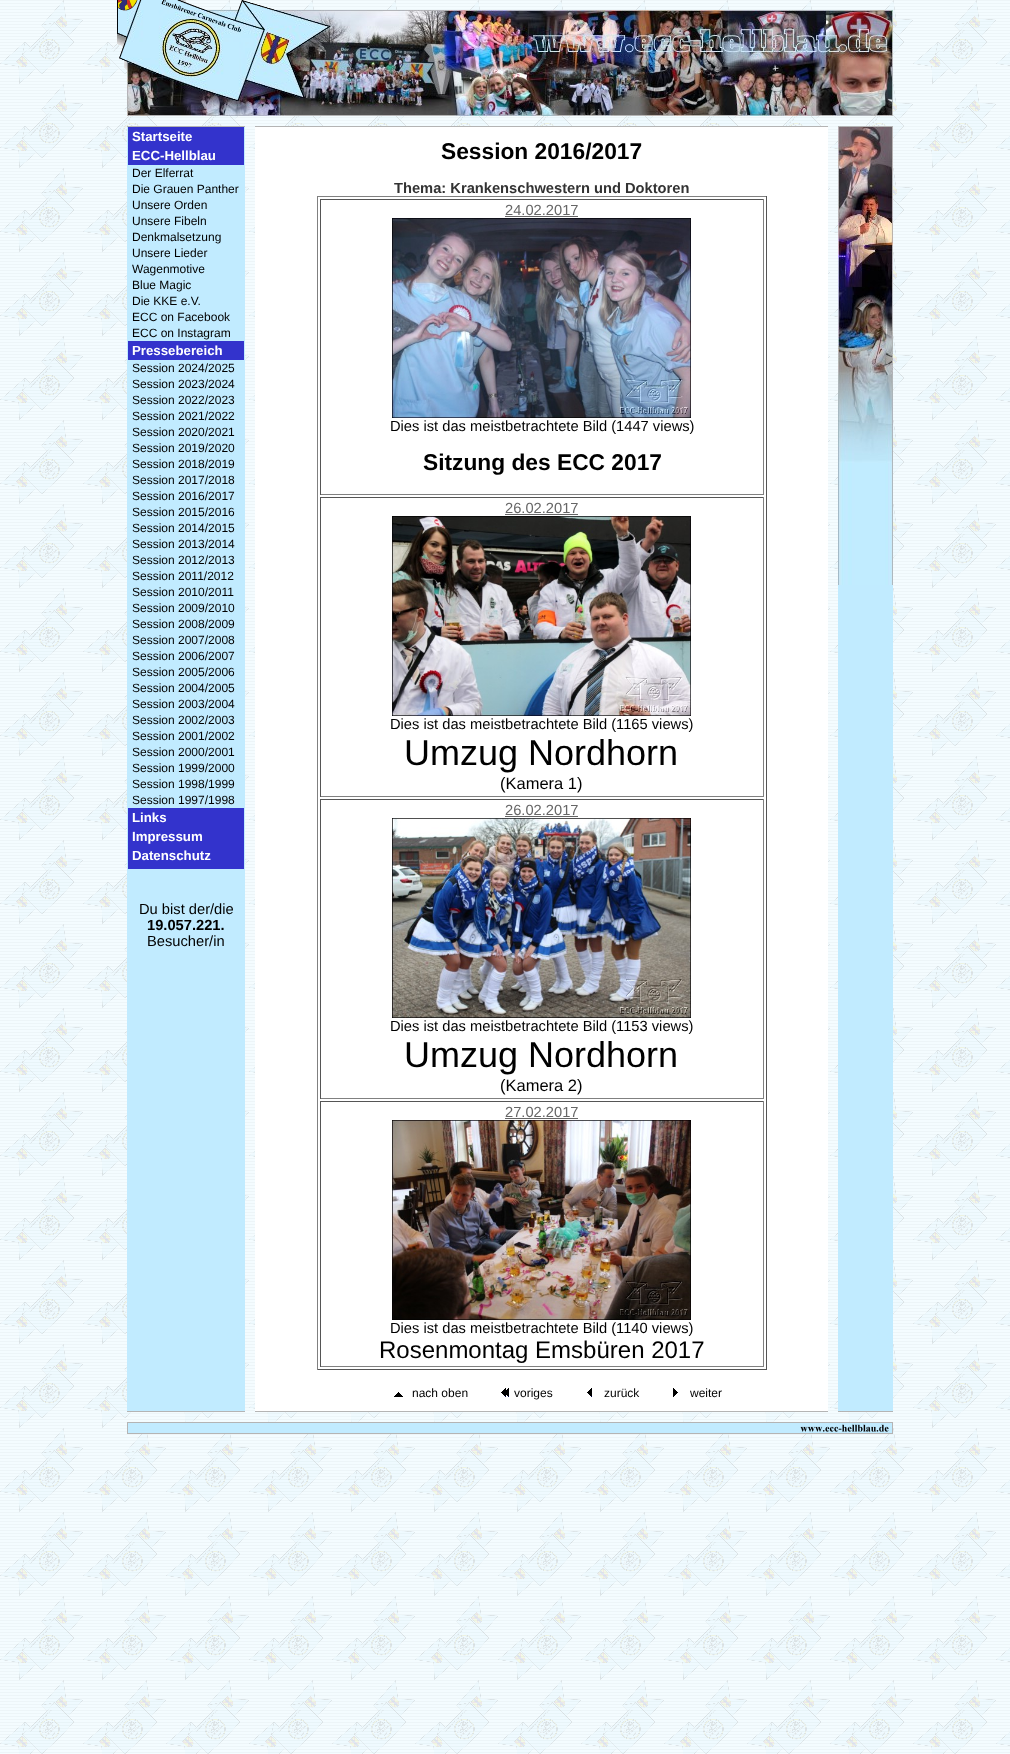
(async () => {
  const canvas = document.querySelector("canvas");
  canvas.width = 1010;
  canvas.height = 1754;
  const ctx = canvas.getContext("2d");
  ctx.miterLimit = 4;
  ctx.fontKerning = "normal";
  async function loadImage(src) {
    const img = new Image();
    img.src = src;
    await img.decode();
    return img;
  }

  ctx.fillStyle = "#ffffff";
  ctx.fillRect(0, 0, 1010, 1754);
  ctx.drawImage(await loadImage("img/1.png"), 0, 0, 1010, 1754);
  ctx.drawImage(await loadImage("img/2.png"), 117, 0, 158, 10);
  ctx.drawImage(await loadImage("img/3.png"), 117, 10, 10, 60);
  ctx.drawImage(await loadImage("img/4.png"), 127, 10, 766, 106);
  ctx.drawImage(await loadImage("img/5.png"), 127, 126, 766, 1);
  for (const [x, y, w, h, color] of [
    [127, 127, 118, 1284, "#c1ebff"],
    [128, 127, 116, 19, "#3333cc"],
    [128, 146, 116, 19, "#3333cc"],
    [128, 341, 116, 19, "#3333cc"],
    [128, 808, 116, 19, "#3333cc"],
    [128, 827, 116, 19, "#3333cc"],
    [128, 846, 116, 19, "#3333cc"],
    [128, 865, 116, 4, "#3333cc"],
    [255, 127, 573, 1284, "#ffffff"],
    [317, 196, 450, 1, "#808080"],
    [766, 196, 1, 1174, "#555555"],
    [317, 1369, 450, 1, "#555555"],
    [317, 196, 1, 1174, "#808080"],
    [320, 199, 444, 1, "#555555"],
    [763, 199, 1, 296, "#808080"],
    [320, 494, 444, 1, "#808080"],
    [320, 199, 1, 296, "#555555"],
    [505, 216, 73, 1, "#666666"],
  ]) {
    ctx.fillStyle = color;
    ctx.fillRect(x, y, w, h);
  }
  ctx.drawImage(await loadImage("img/6.png"), 392, 218, 299, 200);
  for (const [x, y, w, h, color] of [
    [320, 497, 444, 1, "#555555"],
    [763, 497, 1, 300, "#808080"],
    [320, 796, 444, 1, "#808080"],
    [320, 497, 1, 300, "#555555"],
    [505, 514, 73, 1, "#666666"],
  ]) {
    ctx.fillStyle = color;
    ctx.fillRect(x, y, w, h);
  }
  ctx.drawImage(await loadImage("img/7.png"), 392, 516, 299, 200);
  for (const [x, y, w, h, color] of [
    [320, 799, 444, 1, "#555555"],
    [763, 799, 1, 300, "#808080"],
    [320, 1098, 444, 1, "#808080"],
    [320, 799, 1, 300, "#555555"],
    [505, 816, 73, 1, "#666666"],
  ]) {
    ctx.fillStyle = color;
    ctx.fillRect(x, y, w, h);
  }
  ctx.drawImage(await loadImage("img/8.png"), 392, 818, 299, 200);
  for (const [x, y, w, h, color] of [
    [320, 1101, 444, 1, "#555555"],
    [763, 1101, 1, 266, "#808080"],
    [320, 1366, 444, 1, "#808080"],
    [320, 1101, 1, 266, "#555555"],
    [505, 1118, 73, 1, "#666666"],
  ]) {
    ctx.fillStyle = color;
    ctx.fillRect(x, y, w, h);
  }
  ctx.drawImage(await loadImage("img/9.png"), 392, 1120, 299, 200);
  ctx.drawImage(await loadImage("img/10.png"), 394, 1392, 9, 5);
  ctx.drawImage(await loadImage("img/11.png"), 501, 1388, 8, 9);
  ctx.drawImage(await loadImage("img/12.png"), 587, 1388, 5, 9);
  ctx.drawImage(await loadImage("img/13.png"), 673, 1388, 5, 9);
  ctx.fillStyle = "#c1ebff";
  ctx.fillRect(838, 585, 55, 826);
  ctx.drawImage(await loadImage("img/14.png"), 838, 127, 55, 458);
  ctx.drawImage(await loadImage("img/15.png"), 127, 1411, 766, 1);
  ctx.drawImage(await loadImage("img/16.png"), 127, 1422, 766, 12);
  ctx.font = "bold 13.25px Liberation Sans";
  ctx.fillStyle = "#ffffff";
  ctx.fillText("Startseite", 132, 141);
  ctx.fillText("ECC-Hellblau", 132, 160);
  ctx.font = "12px Liberation Sans";
  ctx.fillStyle = "#000000";
  for (const [text, x, y] of [
    ["Der Elferrat", 132, 177],
    ["Die Grauen Panther", 132, 193],
    ["Unsere Orden", 132, 209],
    ["Unsere Fibeln", 132, 225],
    ["Denkmalsetzung", 132, 241],
    ["Unsere Lieder", 132, 257],
    ["Wagenmotive", 132, 273],
    ["Blue Magic", 132, 289],
    ["Die KKE e.V.", 132, 305],
    ["ECC on Facebook", 132, 321],
    ["ECC on Instagram", 132, 337],
  ]) {
    ctx.fillText(text, x, y);
  }
  ctx.font = "bold 13.25px Liberation Sans";
  ctx.fillStyle = "#ffffff";
  ctx.fillText("Pressebereich", 132, 355);
  ctx.font = "12px Liberation Sans";
  ctx.fillStyle = "#000000";
  for (const [text, x, y] of [
    ["Session 2024/2025", 132, 372],
    ["Session 2023/2024", 132, 388],
    ["Session 2022/2023", 132, 404],
    ["Session 2021/2022", 132, 420],
    ["Session 2020/2021", 132, 436],
    ["Session 2019/2020", 132, 452],
    ["Session 2018/2019", 132, 468],
    ["Session 2017/2018", 132, 484],
    ["Session 2016/2017", 132, 500],
    ["Session 2015/2016", 132, 516],
    ["Session 2014/2015", 132, 532],
    ["Session 2013/2014", 132, 548],
    ["Session 2012/2013", 132, 564],
    ["Session 2011/2012", 132, 580],
    ["Session 2010/2011", 132, 596],
    ["Session 2009/2010", 132, 612],
    ["Session 2008/2009", 132, 628],
    ["Session 2007/2008", 132, 644],
    ["Session 2006/2007", 132, 660],
    ["Session 2005/2006", 132, 676],
    ["Session 2004/2005", 132, 692],
    ["Session 2003/2004", 132, 708],
    ["Session 2002/2003", 132, 724],
    ["Session 2001/2002", 132, 740],
    ["Session 2000/2001", 132, 756],
    ["Session 1999/2000", 132, 772],
    ["Session 1998/1999", 132, 788],
    ["Session 1997/1998", 132, 804],
  ]) {
    ctx.fillText(text, x, y);
  }
  ctx.font = "bold 13.25px Liberation Sans";
  ctx.fillStyle = "#ffffff";
  for (const [text, x, y] of [
    ["Links", 132, 822],
    ["Impressum", 132, 841],
    ["Datenschutz", 132, 860],
  ]) {
    ctx.fillText(text, x, y);
  }
  ctx.font = "14.7px Liberation Sans";
  ctx.fillStyle = "#000000";
  ctx.fillText("Du bist der/die", 139, 914);
  ctx.font = "bold 14.7px Liberation Sans";
  ctx.fillText("19.057.221.", 147, 930);
  ctx.font = "14.7px Liberation Sans";
  ctx.fillText("Besucher/in", 147, 946);
  ctx.font = "bold 22.75px Liberation Sans";
  ctx.fillText("Session 2016/2017", 441, 159);
  ctx.font = "bold 14.7px Liberation Sans";
  ctx.fillStyle = "#333333";
  ctx.fillText("Thema: Krankenschwestern und Doktoren", 394, 193);
  ctx.font = "14.7px Liberation Sans";
  ctx.fillStyle = "#666666";
  ctx.fillText("24.02.2017", 505, 215);
  ctx.fillStyle = "#000000";
  ctx.fillText("Dies ist das meistbetrachtete Bild (1447 views)", 390, 431);
  ctx.font = "bold 22.75px Liberation Sans";
  ctx.fillText("Sitzung des ECC 2017", 423, 470);
  ctx.font = "14.7px Liberation Sans";
  ctx.fillStyle = "#666666";
  ctx.fillText("26.02.2017", 505, 513);
  ctx.fillStyle = "#000000";
  ctx.fillText("Dies ist das meistbetrachtete Bild (1165 views)", 390, 729);
  ctx.font = "36px Liberation Sans";
  ctx.fillText("Umzug Nordhorn", 404, 765);
  ctx.font = "16.5px Liberation Sans";
  ctx.fillText("(Kamera 1)", 500, 789);
  ctx.font = "14.7px Liberation Sans";
  ctx.fillStyle = "#666666";
  ctx.fillText("26.02.2017", 505, 815);
  ctx.fillStyle = "#000000";
  ctx.fillText("Dies ist das meistbetrachtete Bild (1153 views)", 390, 1031);
  ctx.font = "36px Liberation Sans";
  ctx.fillText("Umzug Nordhorn", 404, 1067);
  ctx.font = "16.5px Liberation Sans";
  ctx.fillText("(Kamera 2)", 500, 1091);
  ctx.font = "14.7px Liberation Sans";
  ctx.fillStyle = "#666666";
  ctx.fillText("27.02.2017", 505, 1117);
  ctx.fillStyle = "#000000";
  ctx.fillText("Dies ist das meistbetrachtete Bild (1140 views)", 390, 1333);
  ctx.font = "24px Liberation Sans";
  ctx.fillText("Rosenmontag Emsbüren 2017", 379, 1358);
  ctx.font = "12px Liberation Sans";
  for (const [text, x, y] of [
    ["nach oben", 412, 1397],
    ["voriges", 514, 1397],
    ["zurück", 604, 1397],
    ["weiter", 690, 1397],
  ]) {
    ctx.fillText(text, x, y);
  }
})();
